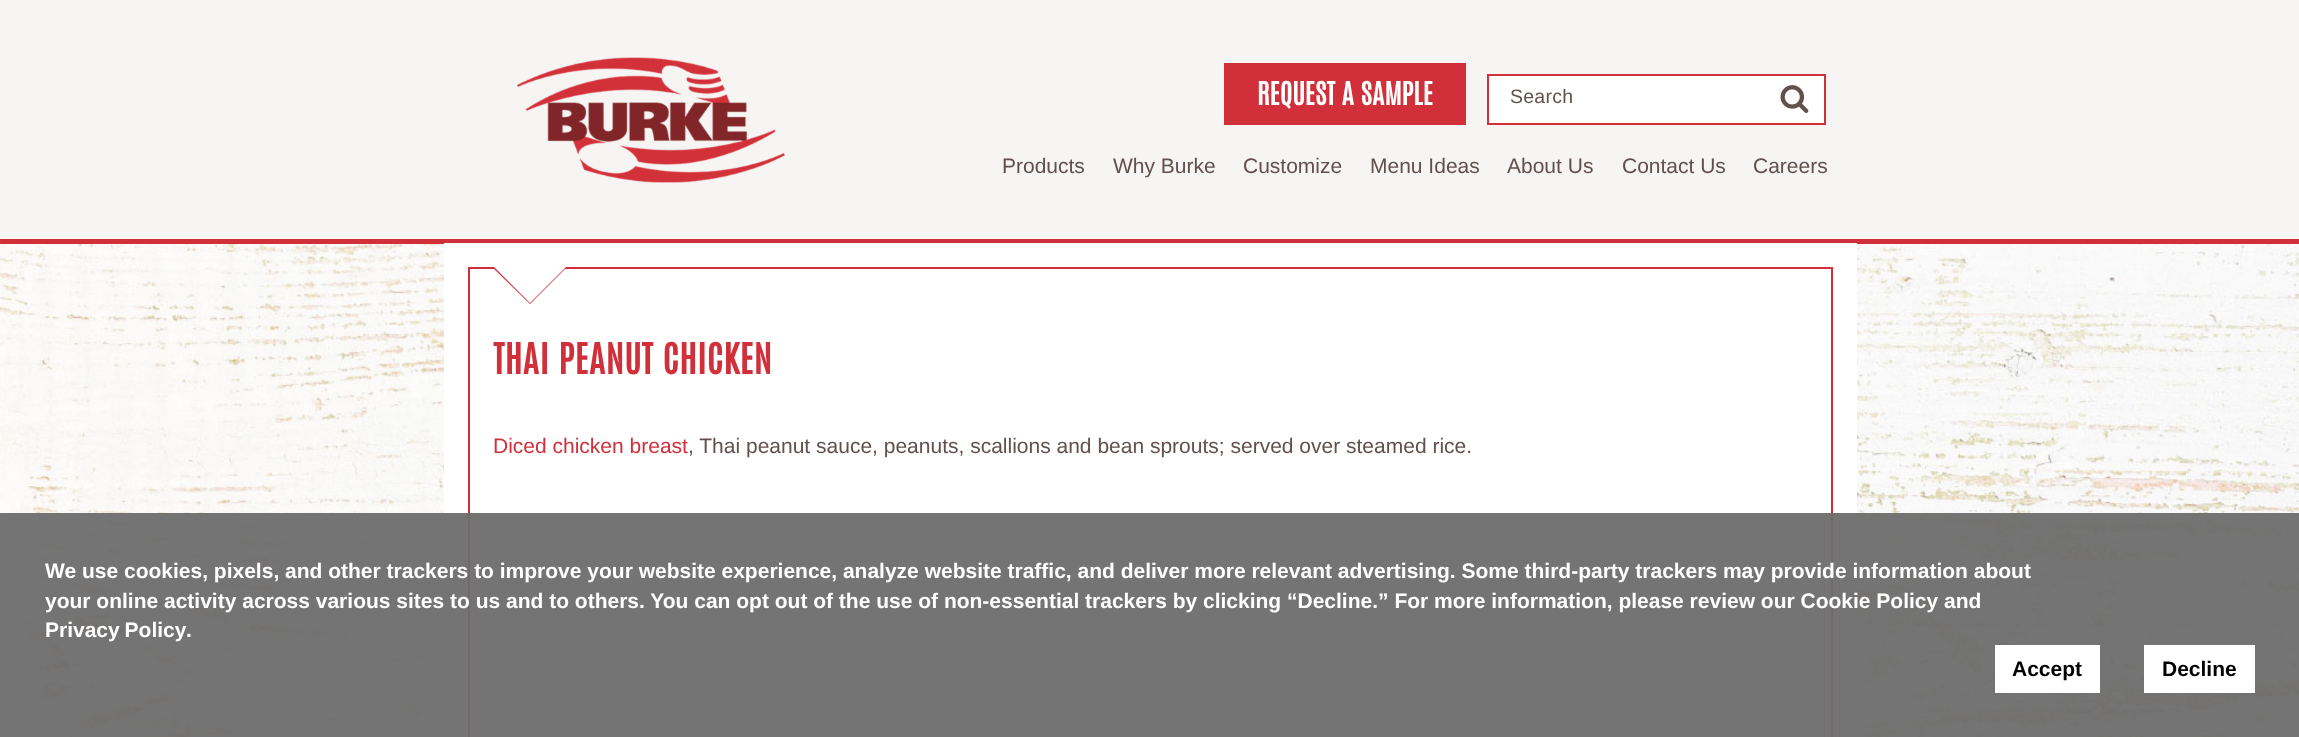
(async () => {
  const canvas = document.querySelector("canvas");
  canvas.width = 2299;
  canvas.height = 737;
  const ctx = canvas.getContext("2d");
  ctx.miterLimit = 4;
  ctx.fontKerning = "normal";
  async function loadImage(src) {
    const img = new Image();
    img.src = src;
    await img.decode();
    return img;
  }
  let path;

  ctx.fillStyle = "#ffffff";
  ctx.fillRect(0, 0, 2299, 737);
  ctx.fillStyle = "#f6f5f3";
  ctx.fillRect(0, 0, 2299, 239);
  ctx.fillStyle = "#d12f39";
  ctx.fillRect(0, 239, 2299, 5);
  ctx.drawImage(await loadImage("img/1.png"), 517, 57, 268, 126);
  ctx.fillRect(1224, 63, 242, 62);
  ctx.fillStyle = "#ffffff";
  ctx.beginPath();
  ctx.rect(1488, 75, 337, 49);
  ctx.fill();
  ctx.strokeStyle = "#d12f39";
  ctx.lineWidth = 2;
  ctx.stroke();
  ctx.drawImage(await loadImage("img/2.png"), 1780, 85, 29, 28);
  ctx.drawImage(await loadImage("img/3.png"), 0, 244, 2299, 493);
  ctx.fillRect(444, 243, 1413, 494);
  ctx.strokeRect(469, 268, 1363, 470);
  ctx.fillStyle = "#d12f39";
  path = new Path2D("M492 267H567L530 304Z");
  ctx.fill(path);
  ctx.fillStyle = "#ffffff";
  path = new Path2D("M494 267H566L530 303Z");
  ctx.fill(path);
  for (const [x, y, w, h, color] of [
    [0, 513, 2299, 224, "rgba(109, 109, 109, 0.95)"],
    [1995, 645, 105, 48, "#ffffff"],
    [2144, 645, 111, 48, "#ffffff"],
  ]) {
    ctx.fillStyle = color;
    ctx.fillRect(x, y, w, h);
  }
  ctx.font = "bold 27px Antonio";
  ctx.fillText("REQUEST A SAMPLE", 1257, 105);
  ctx.letterSpacing = "0.25px";
  ctx.font = "19.5px Liberation Sans";
  ctx.fillStyle = "#61504d";
  ctx.fillText("Search", 1510, 103);
  ctx.letterSpacing = "0px";
  ctx.font = "21px Liberation Sans";
  for (const [text, x, y] of [
    ["Products", 1002, 173],
    ["Why Burke", 1113, 173],
    ["Customize", 1243, 173],
    ["Menu Ideas", 1370, 173],
    ["About Us", 1507, 173],
    ["Contact Us", 1622, 173],
    ["Careers", 1753, 173],
  ]) {
    ctx.fillText(text, x, y);
  }
  ctx.letterSpacing = "0.5px";
  ctx.font = "bold 36px Antonio";
  ctx.fillStyle = "#d12f39";
  ctx.fillText("THAI PEANUT CHICKEN", 493, 374);
  ctx.letterSpacing = "0px";
  ctx.font = "21px Liberation Sans";
  ctx.fillText("Diced chicken breast", 493, 453);
  ctx.fillStyle = "#61504d";
  ctx.fillText(", Thai peanut sauce, peanuts, scallions and bean sprouts; served over steamed rice.", 688, 453);
  ctx.font = "bold 21px Liberation Sans";
  ctx.fillStyle = "#ffffff";
  ctx.fillText("We use cookies, pixels, and other trackers to improve your website experience, analyze website traffic, and deliver more relevant advertising. Some third-party trackers may provide information about", 45, 578);
  ctx.fillText("your online activity across various sites to us and to others. You can opt out of the use of non-essential trackers by clicking “Decline.” For more information, please review our Cookie Policy and", 45, 608);
  ctx.wordSpacing = "-1px";
  ctx.fillText("Privacy Policy", 45, 637);
  ctx.wordSpacing = "0px";
  ctx.fillText(".", 186, 637);
  ctx.fillStyle = "#000000";
  ctx.fillText("Accept", 2012, 676);
  ctx.fillText("Decline", 2162, 676);
})();
